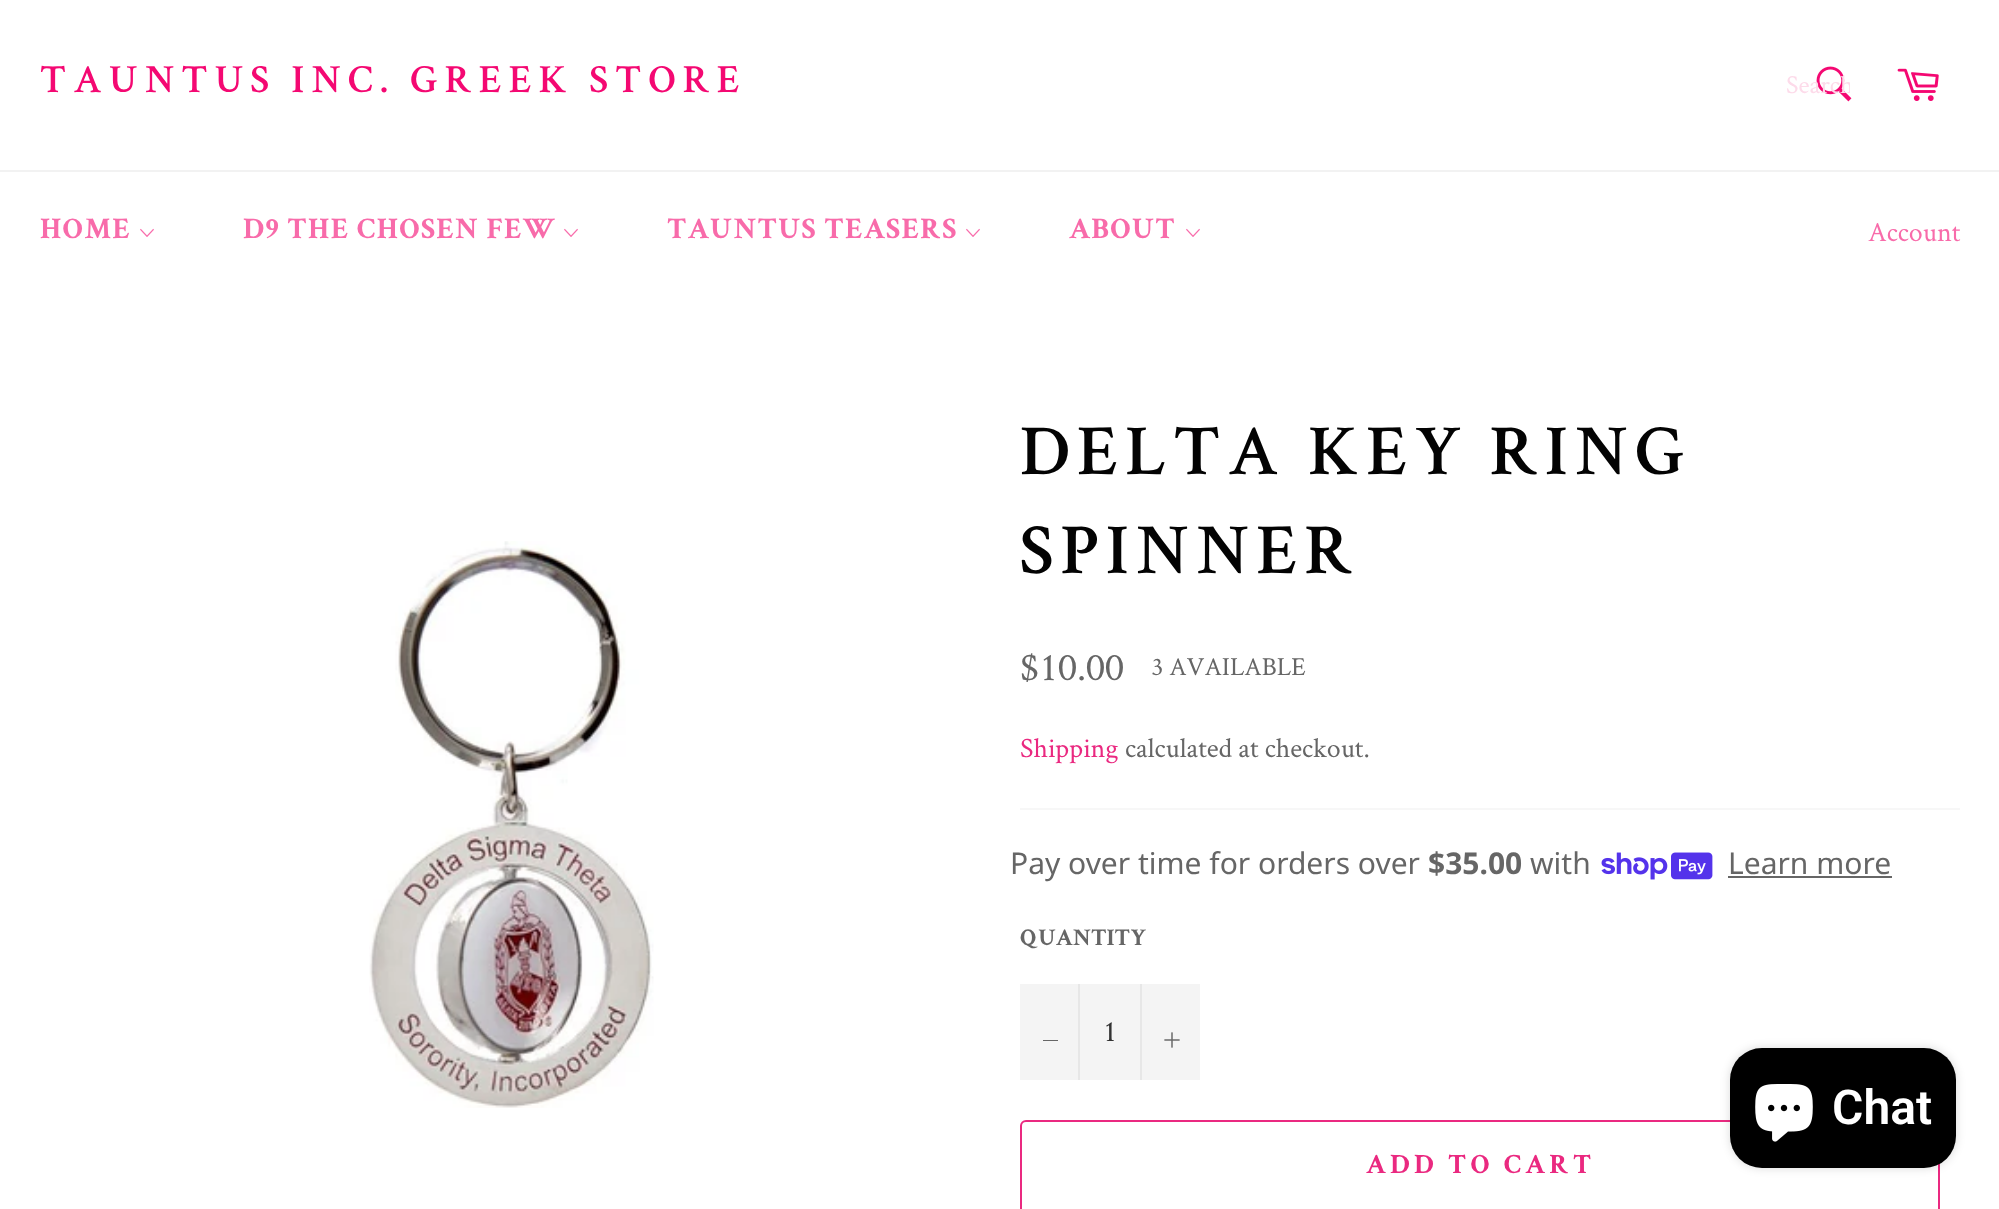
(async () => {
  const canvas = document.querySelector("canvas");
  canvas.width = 1999;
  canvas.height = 1209;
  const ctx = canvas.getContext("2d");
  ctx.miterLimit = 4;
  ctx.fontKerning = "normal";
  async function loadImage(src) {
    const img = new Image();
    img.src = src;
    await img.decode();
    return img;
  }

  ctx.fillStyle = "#ffffff";
  ctx.fillRect(0, 0, 1999, 1209);
  ctx.drawImage(await loadImage("img/1.png"), 1816, 66, 36, 36);
  ctx.drawImage(await loadImage("img/2.png"), 1897, 68, 42, 33);
  ctx.fillStyle = "#f2f2f2";
  ctx.fillRect(0, 170, 1999, 2);
  ctx.drawImage(await loadImage("img/3.png"), 140, 228, 14, 9);
  ctx.drawImage(await loadImage("img/3.png"), 564, 228, 14, 9);
  ctx.drawImage(await loadImage("img/3.png"), 966, 228, 14, 9);
  ctx.drawImage(await loadImage("img/3.png"), 1186, 228, 14, 9);
  ctx.drawImage(await loadImage("img/4.png"), 369, 541, 285, 567);
  ctx.fillStyle = "#f7f7f7";
  ctx.fillRect(1020, 808, 940, 2);
  ctx.drawImage(await loadImage("img/5.png"), 1601, 852, 112, 28);
  for (const [x, y, w, h, color] of [
    [1728, 876, 164, 2, "#666666"],
    [1020, 984, 180, 96, "#f4f4f4"],
    [1078, 984, 2, 96, "#e7e7e7"],
    [1043, 1040, 15, 1, "#666666"],
    [1140, 984, 2, 96, "#e7e7e7"],
  ]) {
    ctx.fillStyle = color;
    ctx.fillRect(x, y, w, h);
  }
  ctx.drawImage(await loadImage("img/6.png"), 1164, 1032, 16, 16);
  ctx.beginPath();
  ctx.roundRect(1021, 1121, 918, 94, 5);
  ctx.strokeStyle = "#ea2980";
  ctx.lineWidth = 2;
  ctx.stroke();
  ctx.fillStyle = "rgba(0, 0, 0, 0.15)";
  ctx.filter = "blur(5px)";
  ctx.beginPath();
  ctx.roundRect(1730, 1048, 226, 120, 32);
  ctx.fill();
  ctx.filter = "none";
  ctx.fillStyle = "#000000";
  ctx.beginPath();
  ctx.roundRect(1730, 1048, 226, 120, 32);
  ctx.fill();
  ctx.drawImage(await loadImage("img/7.png"), 1755, 1084, 58, 58);
  ctx.letterSpacing = "7.2px";
  ctx.font = "600 40px Crimson Text";
  ctx.fillStyle = "#f40872";
  ctx.fillText("TAUNTUS INC. GREEK STORE", 40, 92);
  ctx.save();
  ctx.beginPath();
  ctx.rect(1786, 68, 64, 36);
  ctx.clip();
  ctx.letterSpacing = "0px";
  ctx.font = "26px Crimson Text";
  ctx.fillStyle = "#fddbea";
  ctx.fillText("Search", 1786, 93);
  ctx.restore();
  ctx.letterSpacing = "1.25px";
  ctx.font = "bold 30px Crimson Text";
  ctx.fillStyle = "#f86baa";
  for (const [text, x, y] of [
    ["HOME", 40, 238],
    ["D9 THE CHOSEN FEW", 243, 238],
    ["TAUNTUS TEASERS", 667, 238],
    ["ABOUT", 1069, 238],
  ]) {
    ctx.fillText(text, x, y);
  }
  ctx.letterSpacing = "0px";
  ctx.font = "28px Crimson Text";
  ctx.fillText("Account", 1868, 241);
  ctx.letterSpacing = "7.2px";
  ctx.font = "600 72px Crimson Text";
  ctx.fillStyle = "#030303";
  ctx.fillText("DELTA KEY RING", 1020, 474);
  ctx.fillText("SPINNER", 1020, 573);
  ctx.letterSpacing = "0px";
  ctx.font = "40px Crimson Text";
  ctx.fillStyle = "#666666";
  ctx.fillText("$10.00", 1020, 680);
  ctx.font = "26px Crimson Text";
  ctx.fillText("3 AVAILABLE", 1151, 675);
  ctx.font = "28px Crimson Text";
  ctx.fillStyle = "#ea2980";
  ctx.fillText("Shipping", 1020, 757);
  ctx.fillStyle = "#666666";
  ctx.fillText("calculated at checkout.", 1125, 757);
  ctx.font = "30px Noto Sans";
  ctx.fillText("Pay over time for orders over", 1010, 874);
  ctx.font = "bold 30px Noto Sans";
  ctx.fillText("$35.00", 1428, 874);
  ctx.font = "30px Noto Sans";
  ctx.fillText("with", 1530, 874);
  ctx.fillText("Learn more", 1728, 874);
  ctx.font = "bold 24px Crimson Text";
  ctx.fillText("QUANTITY", 1020, 945);
  ctx.font = "30px Crimson Text";
  ctx.fillStyle = "#333333";
  ctx.fillText("1", 1103, 1041);
  ctx.letterSpacing = "4.25px";
  ctx.font = "bold 28px Crimson Text";
  ctx.fillStyle = "#ea2980";
  ctx.fillText("ADD TO CART", 1366, 1173);
  ctx.letterSpacing = "0px";
  ctx.font = "600 48px Roboto";
  ctx.fillStyle = "#ffffff";
  ctx.fillText("Chat", 1832, 1124);
})();
